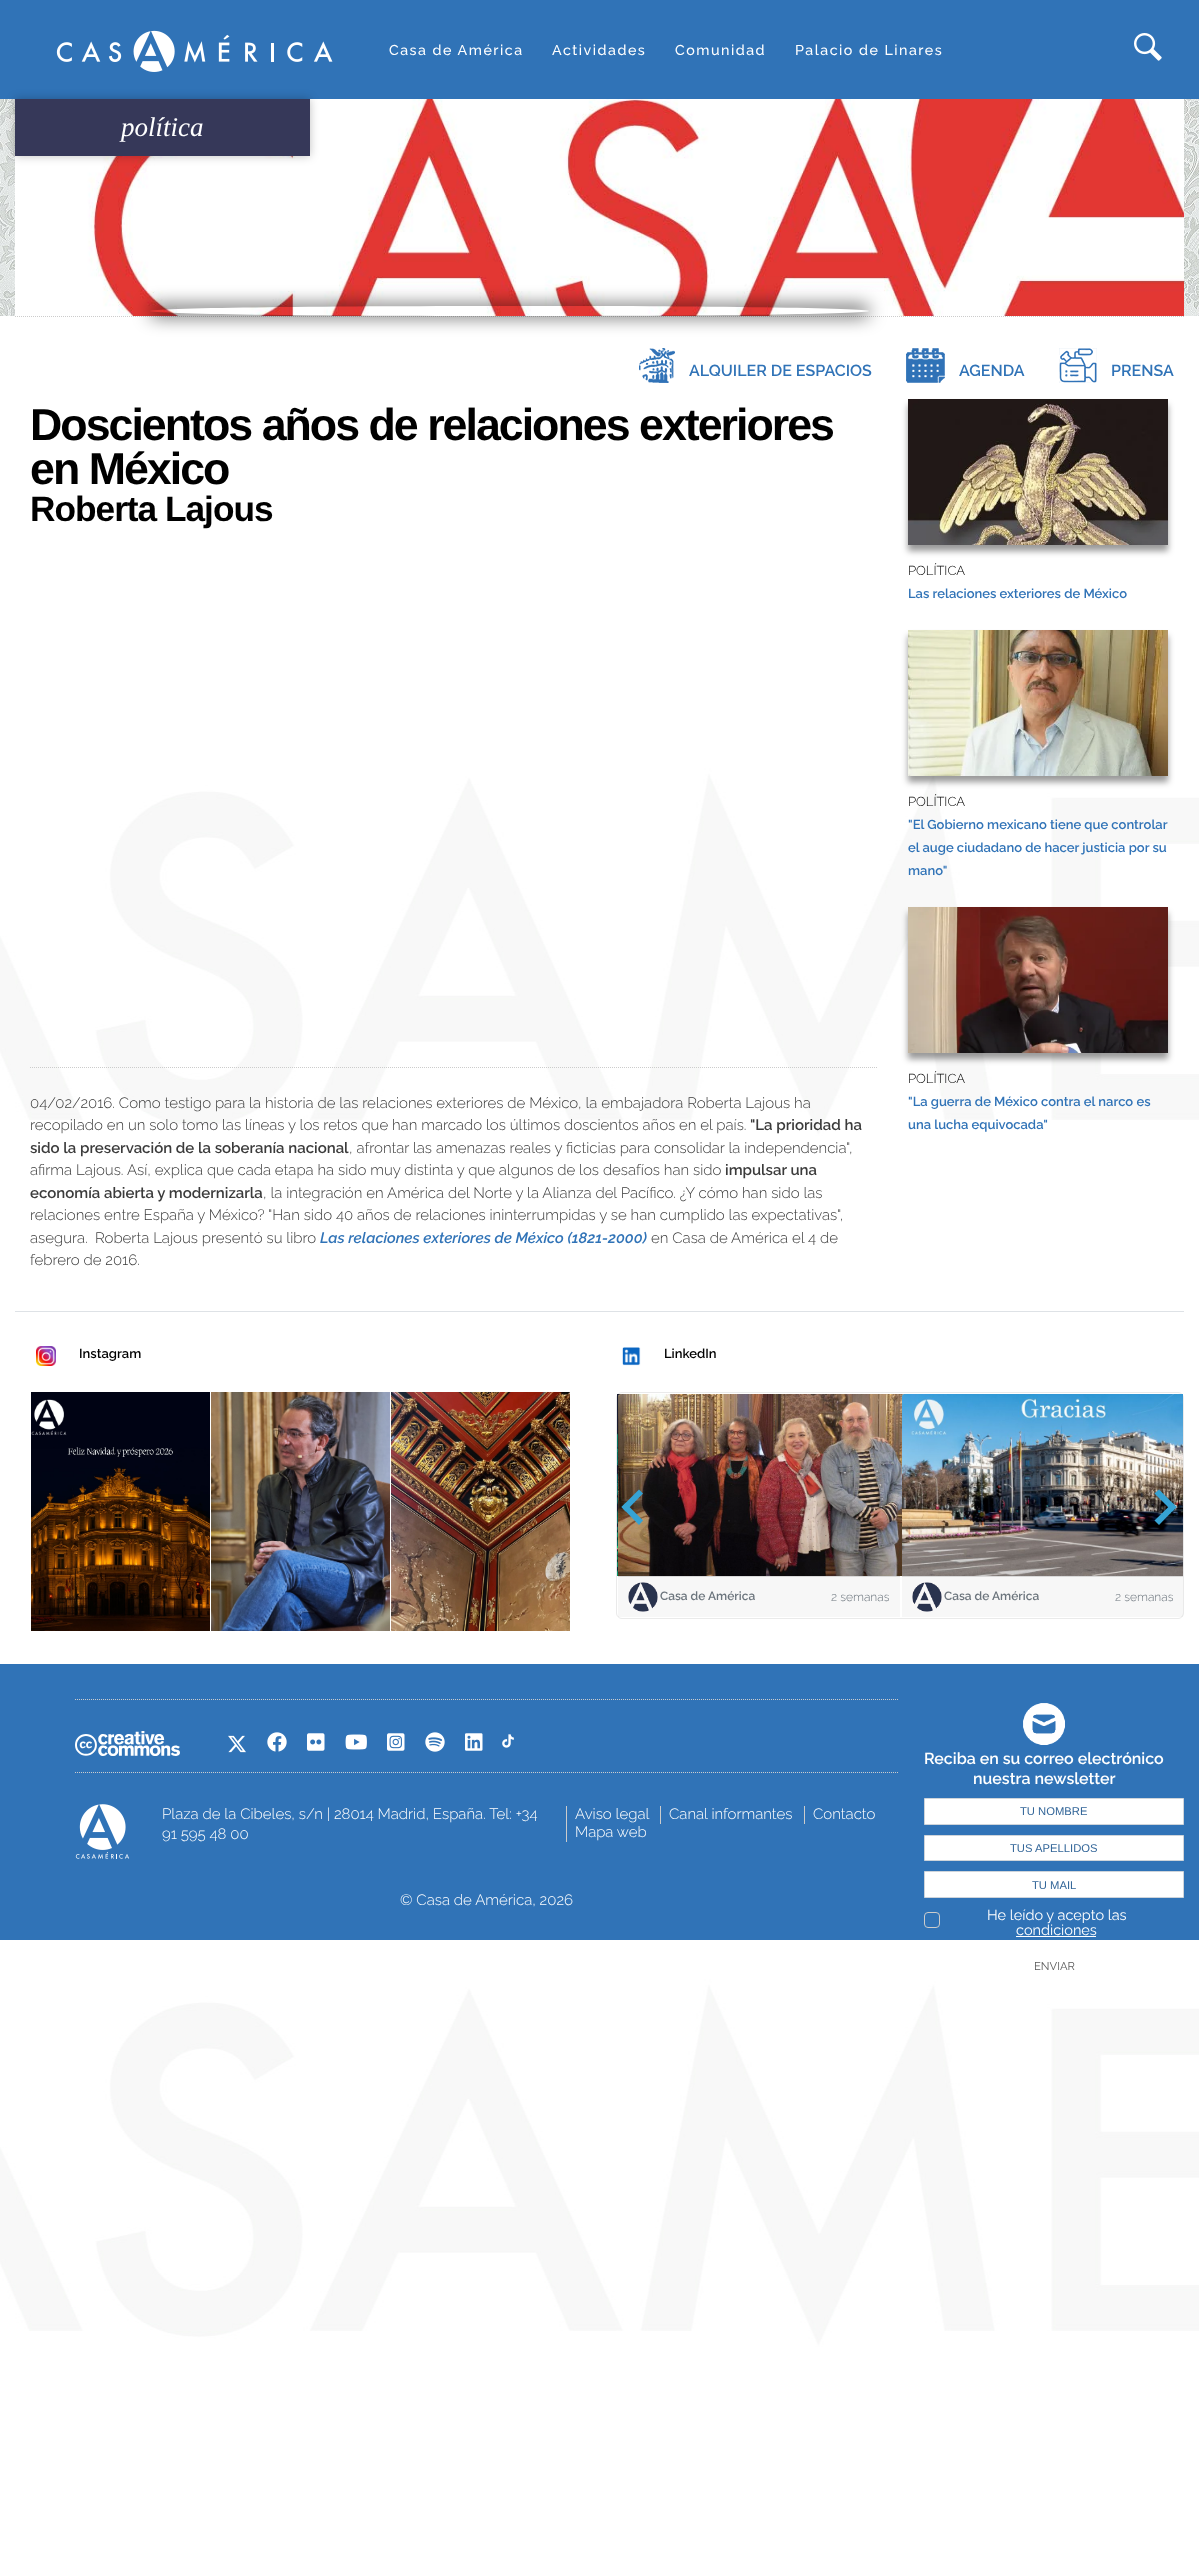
(async () => {
  const canvas = document.querySelector("canvas");
  canvas.width = 1199;
  canvas.height = 2552;
  const ctx = canvas.getContext("2d");
  ctx.miterLimit = 4;
  ctx.fontKerning = "normal";
  async function loadImage(src) {
    const img = new Image();
    img.src = src;
    await img.decode();
    return img;
  }
  let path;

  ctx.fillStyle = "#ffffff";
  ctx.fillRect(0, 0, 1199, 2552);
  ctx.drawImage(await loadImage("img/1.png"), 0, 316, 1199, 2236);
  ctx.fillStyle = "#3073b7";
  ctx.fillRect(0, 0, 1199, 99);
  ctx.drawImage(await loadImage("img/2.png"), 56, 30, 277, 42);
  ctx.drawImage(await loadImage("img/3.png"), 1134, 33, 28, 28);
  ctx.drawImage(await loadImage("img/4.png"), 0, 99, 1199, 217);
  ctx.drawImage(await loadImage("img/5.png"), 15, 99, 1169, 217);
  ctx.fillStyle = "rgba(0, 0, 0, 0.25)";
  ctx.filter = "blur(5px)";
  ctx.beginPath();
  ctx.rect(15, 99, 295, 57);
  ctx.fill();
  ctx.filter = "none";
  ctx.fillStyle = "#363859";
  ctx.fillRect(15, 99, 295, 57);
  path = new Path2D("M15 316.5H1184");
  ctx.strokeStyle = "#cccccc";
  ctx.setLineDash([1, 1]);
  ctx.stroke(path);
  ctx.save();
  path = new Path2D("M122 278H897V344H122ZM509.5 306C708 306 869 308 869 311C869 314 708 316 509.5 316C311 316 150 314 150 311C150 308 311 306 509.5 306Z");
  ctx.clip(path, "evenodd");
  ctx.fillStyle = "rgba(0, 0, 0, 0.75)";
  ctx.filter = "blur(9px)";
  ctx.beginPath();
  ctx.roundRect(150, 306, 719, 10, 5);
  ctx.fill();
  ctx.filter = "none";
  ctx.restore();
  ctx.drawImage(await loadImage("img/6.png"), 639, 348, 36, 35);
  ctx.drawImage(await loadImage("img/7.png"), 906, 348, 39, 35);
  ctx.drawImage(await loadImage("img/8.png"), 1059, 348, 38, 35);
  path = new Path2D("M30 1067.5H877");
  ctx.stroke(path);
  ctx.fillStyle = "rgba(0, 0, 0, 0.4)";
  ctx.filter = "blur(3px)";
  ctx.beginPath();
  ctx.rect(908, 405, 260, 146);
  ctx.fill();
  ctx.filter = "none";
  ctx.drawImage(await loadImage("img/9.png"), 908, 399, 260, 146);
  ctx.filter = "blur(3px)";
  ctx.beginPath();
  ctx.rect(908, 636, 260, 146);
  ctx.fill();
  ctx.filter = "none";
  ctx.drawImage(await loadImage("img/10.png"), 908, 630, 260, 146);
  ctx.filter = "blur(3px)";
  ctx.beginPath();
  ctx.rect(908, 913, 260, 146);
  ctx.fill();
  ctx.filter = "none";
  ctx.drawImage(await loadImage("img/11.png"), 908, 907, 260, 146);
  ctx.fillStyle = "#dee2e6";
  ctx.fillRect(15, 1311, 1169, 1);
  ctx.drawImage(await loadImage("img/12.png"), 36, 1346, 20, 20);
  ctx.drawImage(await loadImage("img/13.png"), 31, 1392, 179, 239);
  ctx.drawImage(await loadImage("img/14.png"), 211, 1392, 179, 239);
  ctx.drawImage(await loadImage("img/15.png"), 391, 1392, 179, 239);
  ctx.drawImage(await loadImage("img/16.png"), 622, 1347, 19, 19);
  ctx.beginPath();
  ctx.roundRect(616.5, 1392.5, 567, 226, 5.5);
  ctx.strokeStyle = "#eaeaea";
  ctx.setLineDash([]);
  ctx.stroke();
  ctx.drawImage(await loadImage("img/17.png"), 617, 1394, 4, 182);
  ctx.drawImage(await loadImage("img/18.png"), 618, 1394, 287, 182);
  ctx.fillStyle = "#36a3d4";
  path = new Path2D("M621.5 1507L639 1489.5L643 1493.5L625.5 1511.5Z");
  ctx.fill(path);
  path = new Path2D("M621.5 1507L625.5 1503L643 1520.5L639 1525Z");
  ctx.fill(path);
  ctx.drawImage(await loadImage("img/20.png"), 902, 1394, 281, 182);
  path = new Path2D("M1159 1489.5L1176.5 1507L1172.5 1511.5L1154.5 1493.5Z");
  ctx.fill(path);
  path = new Path2D("M1172.5 1503L1176.5 1507L1159 1525L1154.5 1520.5Z");
  ctx.fill(path);
  ctx.fillStyle = "rgba(0, 0, 0, 0.03)";
  ctx.fillRect(618, 1576, 282, 41);
  ctx.fillStyle = "rgba(0, 0, 0, 0.12)";
  ctx.fillRect(618, 1576, 282, 1);
  ctx.drawImage(await loadImage("img/19.png"), 628, 1582, 30, 30);
  ctx.fillStyle = "rgba(0, 0, 0, 0.03)";
  ctx.fillRect(902, 1576, 281, 41);
  ctx.fillStyle = "rgba(0, 0, 0, 0.12)";
  ctx.fillRect(902, 1576, 281, 1);
  ctx.drawImage(await loadImage("img/21.png"), 912, 1582, 30, 30);
  ctx.fillStyle = "#3073b7";
  ctx.fillRect(0, 1664, 1199, 276);
  path = new Path2D("M75 1699.5H899");
  ctx.strokeStyle = "#cccccc";
  ctx.setLineDash([1, 1]);
  ctx.stroke(path);
  ctx.drawImage(await loadImage("img/22.png"), 75, 1731, 105, 25);
  ctx.drawImage(await loadImage("img/23.png"), 228, 1735, 18, 18);
  ctx.drawImage(await loadImage("img/24.png"), 267, 1732, 20, 20);
  ctx.drawImage(await loadImage("img/25.png"), 307, 1733, 18, 18);
  ctx.drawImage(await loadImage("img/26.png"), 345, 1734, 22, 16);
  ctx.drawImage(await loadImage("img/27.png"), 387, 1733, 18, 18);
  ctx.drawImage(await loadImage("img/28.png"), 425, 1732, 20, 20);
  ctx.drawImage(await loadImage("img/29.png"), 465, 1733, 18, 18);
  ctx.drawImage(await loadImage("img/30.png"), 502, 1734, 12, 14);
  path = new Path2D("M75 1772.5H899");
  ctx.stroke(path);
  ctx.drawImage(await loadImage("img/31.png"), 75, 1804, 55, 55);
  for (const [x, y, w, h, color] of [
    [566, 1806, 1, 36, "#cccccc"],
    [660, 1806, 1, 18, "#cccccc"],
    [804, 1806, 1, 18, "#cccccc"],
  ]) {
    ctx.fillStyle = color;
    ctx.fillRect(x, y, w, h);
  }
  ctx.drawImage(await loadImage("img/32.png"), 1023, 1703, 42, 42);
  ctx.fillStyle = "#ffffff";
  ctx.beginPath();
  ctx.rect(924.5, 1798.5, 259, 26);
  ctx.fill();
  ctx.strokeStyle = "#ced4da";
  ctx.setLineDash([]);
  ctx.stroke();
  ctx.beginPath();
  ctx.rect(924.5, 1835.5, 259, 25);
  ctx.fill();
  ctx.stroke();
  ctx.beginPath();
  ctx.rect(924.5, 1871.5, 259, 26);
  ctx.fill();
  ctx.stroke();
  ctx.beginPath();
  ctx.roundRect(924.5, 1912.5, 15, 15, 3.5);
  ctx.strokeStyle = "#cccccc";
  ctx.stroke();
  ctx.fillRect(1016, 1936, 80, 1);
  ctx.letterSpacing = "1.5px";
  ctx.font = "500 14.25px Raleway";
  for (const [text, x, y] of [
    ["Casa de América", 389, 55],
    ["Actividades", 552, 55],
    ["Comunidad", 675, 55],
    ["Palacio de Linares", 795, 55],
  ]) {
    ctx.fillText(text, x, y);
  }
  ctx.letterSpacing = "0px";
  ctx.font = "italic 27px Liberation Serif";
  ctx.fillText("política", 121, 136);
  ctx.font = "600 16px Raleway";
  ctx.fillStyle = "#3073b7";
  for (const [text, x, y] of [
    ["ALQUILER DE ESPACIOS", 689, 376],
    ["AGENDA", 959, 376],
    ["PRENSA", 1111, 376],
  ]) {
    ctx.fillText(text, x, y);
  }
  ctx.letterSpacing = "-2px";
  ctx.font = "bold 44.75px Liberation Sans";
  ctx.fillStyle = "#000000";
  ctx.fillText("Doscientos años de relaciones exteriores", 30, 440);
  ctx.fillText("en México", 30, 484);
  ctx.letterSpacing = "-1px";
  ctx.font = "bold 35.25px Liberation Sans";
  ctx.fillText("Roberta Lajous", 30, 521);
  ctx.letterSpacing = "0px";
  ctx.font = "300 15px Raleway";
  ctx.fillStyle = "#3b3b3b";
  ctx.fillText("04/02/2016. Como testigo para la historia de las relaciones exteriores de México, la embajadora Roberta Lajous ha", 30, 1108);
  ctx.fillText("recopilado en un solo tomo las líneas y los retos que han marcado los últimos doscientos años en el país.", 30, 1130);
  ctx.font = "600 15px Raleway";
  ctx.fillText("\"La prioridad ha", 750, 1130);
  ctx.fillText("sido la preservación de la soberanía nacional", 30, 1153);
  ctx.font = "300 15px Raleway";
  for (const [text, x, y] of [
    [", afrontar las amenazas reales y ficticias para consolidar la independencia\",", 349, 1153],
    ["afirma Lajous.", 30, 1175],
    ["Así, explica que cada etapa ha sido muy distinta y que algunos de los desafíos han sido", 127, 1175],
  ]) {
    ctx.fillText(text, x, y);
  }
  ctx.font = "600 15px Raleway";
  ctx.fillText("impulsar una", 725, 1175);
  ctx.fillText("economía abierta y modernizarla", 30, 1198);
  ctx.font = "300 15px Raleway";
  for (const [text, x, y] of [
    [", la integración en América del Norte y la Alianza del Pacífico. ¿Y cómo han sido las", 263, 1198],
    ["relaciones entre España y México? \"Han sido 40 años de relaciones ininterrumpidas y se han cumplido las expectativas\",", 30, 1220],
    ["asegura.", 30, 1243],
    ["Roberta Lajous presentó su libro", 95, 1243],
  ]) {
    ctx.fillText(text, x, y);
  }
  ctx.font = "italic 600 15px Raleway";
  ctx.fillStyle = "#3073b7";
  ctx.fillText("Las relaciones exteriores de México (1821-2000)", 320, 1243);
  ctx.font = "300 15px Raleway";
  ctx.fillStyle = "#3b3b3b";
  ctx.fillText("en Casa de América el 4 de", 651, 1243);
  ctx.fillText("febrero de 2016.", 30, 1265);
  ctx.font = "300 13px Raleway";
  ctx.fillStyle = "#000000";
  ctx.fillText("POLÍTICA", 908, 575);
  ctx.font = "600 13px Raleway";
  ctx.fillStyle = "#3073b7";
  ctx.fillText("Las relaciones exteriores de México", 908, 598);
  ctx.font = "300 13px Raleway";
  ctx.fillStyle = "#000000";
  ctx.fillText("POLÍTICA", 908, 806);
  ctx.font = "600 13px Raleway";
  ctx.fillStyle = "#3073b7";
  for (const [text, x, y] of [
    ["\"El Gobierno mexicano tiene que controlar", 908, 829],
    ["el auge ciudadano de hacer justicia por su", 908, 852],
    ["mano\"", 908, 875],
  ]) {
    ctx.fillText(text, x, y);
  }
  ctx.font = "300 13px Raleway";
  ctx.fillStyle = "#000000";
  ctx.fillText("POLÍTICA", 908, 1083);
  ctx.font = "600 13px Raleway";
  ctx.fillStyle = "#3073b7";
  ctx.fillText("\"La guerra de México contra el narco es", 908, 1106);
  ctx.fillText("una lucha equivocada\"", 908, 1129);
  ctx.fillStyle = "#000000";
  ctx.fillText("Instagram", 79, 1358);
  ctx.fillText("LinkedIn", 664, 1358);
  ctx.font = "600 12px Raleway";
  ctx.fillStyle = "#6c757d";
  ctx.fillText("Casa de América", 660, 1600);
  ctx.font = "300 12px Raleway";
  ctx.fillText("2 semanas", 831, 1601);
  ctx.font = "600 12px Raleway";
  ctx.fillText("Casa de América", 944, 1600);
  ctx.font = "300 12px Raleway";
  ctx.fillText("2 semanas", 1115, 1601);
  ctx.font = "300 15px Raleway";
  ctx.fillStyle = "#ffffff";
  for (const [text, x, y] of [
    ["Plaza de la Cibeles, s/n | 28014 Madrid, España. Tel: +34", 162, 1819],
    ["91 595 48 00", 162, 1839],
    ["Aviso legal", 575, 1819],
    ["Canal informantes", 669, 1819],
    ["Contacto", 813, 1819],
    ["Mapa web", 575, 1837],
    ["© Casa de América, 2026", 400, 1905],
  ]) {
    ctx.fillText(text, x, y);
  }
  ctx.font = "600 16px Raleway";
  ctx.fillText("Reciba en su correo electrónico", 924, 1764);
  ctx.fillText("nuestra newsletter", 973, 1784);
  ctx.font = "11.25px Liberation Sans";
  ctx.fillStyle = "#336699";
  for (const [text, x, y] of [
    ["TU NOMBRE", 1020, 1815],
    ["TUS APELLIDOS", 1010, 1852],
    ["TU MAIL", 1032, 1889],
  ]) {
    ctx.fillText(text, x, y);
  }
  ctx.font = "14.5px Raleway";
  ctx.fillStyle = "#ffffff";
  ctx.fillText("He leído y acepto las", 987, 1920);
  ctx.fillText("condiciones", 1016, 1935);
  ctx.font = "11.25px Raleway";
  ctx.fillStyle = "#595959";
  ctx.fillText("ENVIAR", 1034, 1970);
})();
